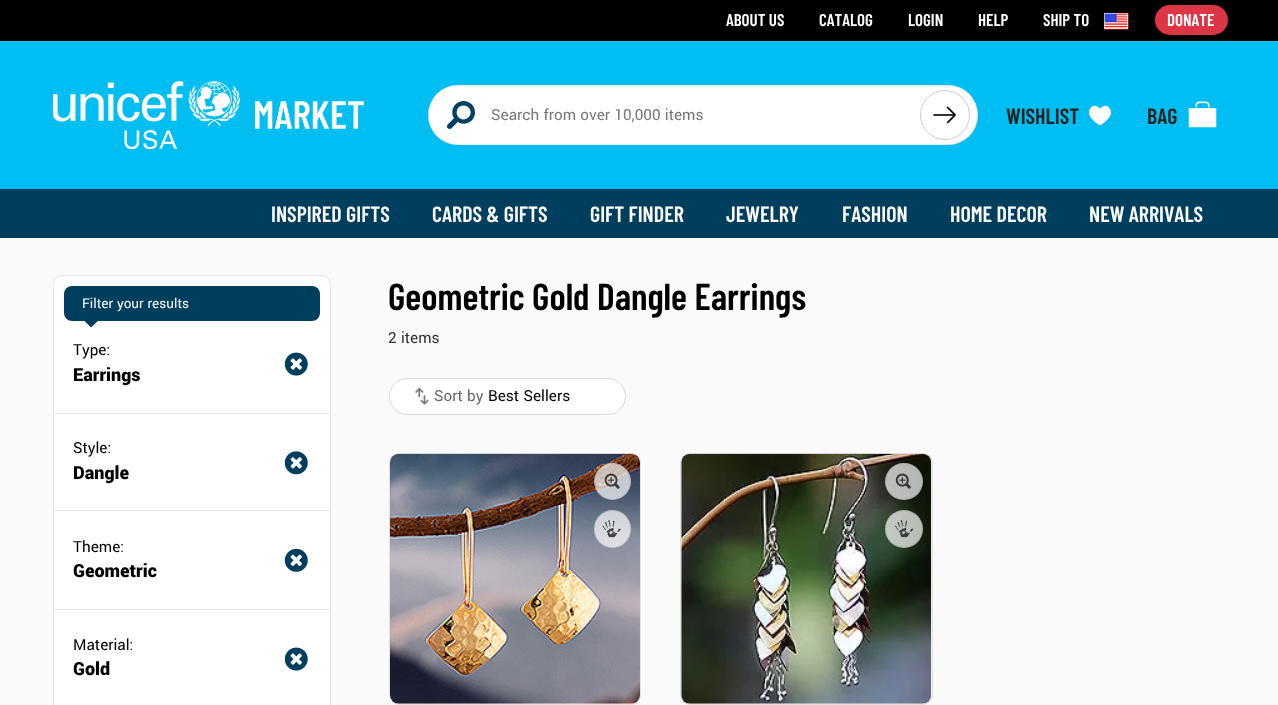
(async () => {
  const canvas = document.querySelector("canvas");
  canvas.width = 1278;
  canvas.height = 705;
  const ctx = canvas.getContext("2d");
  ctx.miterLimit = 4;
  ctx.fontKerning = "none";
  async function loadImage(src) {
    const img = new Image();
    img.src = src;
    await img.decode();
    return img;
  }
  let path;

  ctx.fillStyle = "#fafafa";
  ctx.fillRect(0, 0, 1278, 705);
  ctx.fillStyle = "#00bdf2";
  ctx.fillRect(0, 41, 1278, 148);
  ctx.fillStyle = "#000000";
  ctx.fillRect(0, 0, 1278, 41);
  ctx.drawImage(await loadImage("img/1.png"), 1104, 12, 25, 18);
  ctx.strokeStyle = "rgba(255, 255, 255, 0.6)";
  ctx.strokeRect(1104.5, 13.5, 23, 15);
  ctx.fillStyle = "#dc3545";
  ctx.beginPath();
  ctx.roundRect(1155, 5, 73, 30, 15);
  ctx.fill();
  ctx.drawImage(await loadImage("img/2.png"), 53, 81, 187, 68);
  ctx.drawImage(await loadImage("img/3.png"), 255, 101, 109, 28);
  ctx.fillStyle = "#ffffff";
  ctx.beginPath();
  ctx.roundRect(428, 85, 550, 60, 30);
  ctx.fill();
  ctx.beginPath();
  ctx.roundRect(428.5, 85.5, 549, 59, 29.5);
  ctx.strokeStyle = "rgba(0, 0, 0, 0.1)";
  ctx.stroke();
  ctx.beginPath();
  ctx.roundRect(429, 86, 491, 58, [29, 0, 0, 29]);
  ctx.fill();
  ctx.beginPath();
  ctx.arc(945, 115, 24.5, 0, Math.PI * 2);
  ctx.strokeStyle = "#cccccc";
  ctx.stroke();
  ctx.drawImage(await loadImage("img/4.png"), 933, 106, 24, 18);
  ctx.drawImage(await loadImage("img/5.png"), 1188, 101, 29, 27);
  ctx.fillStyle = "#003e5e";
  ctx.fillRect(0, 189, 1278, 49);
  ctx.fillStyle = "#ffffff";
  ctx.beginPath();
  ctx.roundRect(53.5, 275.5, 277, 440, 9.5);
  ctx.fill();
  ctx.strokeStyle = "#e5e5e5";
  ctx.stroke();
  ctx.fillStyle = "#003e5e";
  ctx.beginPath();
  ctx.roundRect(64, 286, 256, 35, 8);
  ctx.fill();
  path = new Path2D("M82.5 319H100L91 327.5Z");
  ctx.fill(path);
  ctx.drawImage(await loadImage("img/6.png"), 284, 352, 24, 24);
  ctx.fillStyle = "#e6e6e6";
  ctx.fillRect(54, 413, 276, 1);
  ctx.drawImage(await loadImage("img/7.png"), 284, 451, 24, 24);
  ctx.fillRect(54, 510, 276, 1);
  ctx.drawImage(await loadImage("img/8.png"), 284, 548, 24, 24);
  ctx.fillRect(54, 609, 276, 1);
  ctx.drawImage(await loadImage("img/6.png"), 284, 647, 24, 24);
  ctx.fillStyle = "#ffffff";
  ctx.beginPath();
  ctx.roundRect(389.5, 378.5, 236, 36, 18);
  ctx.fill();
  ctx.strokeStyle = "#d9d9d9";
  ctx.stroke();
  ctx.drawImage(await loadImage("img/9.png"), 415, 387, 14, 18);
  ctx.beginPath();
  ctx.roundRect(389.5, 453.5, 251, 251, 9.5);
  ctx.strokeStyle = "#e1e1e1";
  ctx.stroke();
  ctx.drawImage(await loadImage("img/10.png"), 390, 453, 250, 251);
  ctx.fillStyle = "rgba(255, 255, 255, 0.7)";
  ctx.beginPath();
  ctx.arc(612.5, 481.5, 18.5, 0, Math.PI * 2);
  ctx.fill();
  ctx.beginPath();
  ctx.arc(612.5, 481.5, 18, 0, Math.PI * 2);
  ctx.strokeStyle = "rgba(0, 0, 0, 0.1)";
  ctx.stroke();
  ctx.drawImage(await loadImage("img/11.png"), 604, 473, 16, 16);
  ctx.beginPath();
  ctx.roundRect(594, 510, 37, 38, 18.5);
  ctx.fill();
  ctx.beginPath();
  ctx.roundRect(594.5, 510.5, 36, 37, 18);
  ctx.stroke();
  ctx.drawImage(await loadImage("img/12.png"), 602, 520, 19, 18);
  ctx.beginPath();
  ctx.roundRect(680.5, 453.5, 252, 251, 9.5);
  ctx.strokeStyle = "#e1e1e1";
  ctx.stroke();
  ctx.drawImage(await loadImage("img/13.png"), 681, 453, 251, 251);
  ctx.beginPath();
  ctx.roundRect(885, 463, 38, 37, 18.5);
  ctx.fill();
  ctx.beginPath();
  ctx.roundRect(885.5, 463.5, 37, 36, 18);
  ctx.strokeStyle = "rgba(0, 0, 0, 0.1)";
  ctx.stroke();
  ctx.drawImage(await loadImage("img/14.png"), 895, 473, 17, 16);
  ctx.beginPath();
  ctx.arc(904, 529, 19, 0, Math.PI * 2);
  ctx.fill();
  ctx.beginPath();
  ctx.arc(904, 529, 18.5, 0, Math.PI * 2);
  ctx.stroke();
  ctx.drawImage(await loadImage("img/15.png"), 895, 520, 19, 18);
  ctx.font = "600 17px Barlow Condensed";
  ctx.fillStyle = "#ffffff";
  for (const [text, x, y] of [
    ["ABOUT US", 726, 26],
    ["CATALOG", 819, 26],
    ["LOGIN", 908, 26],
    ["HELP", 978, 26],
    ["SHIP TO", 1043, 26],
    ["DONATE", 1167, 26],
  ]) {
    ctx.fillText(text, x, y);
  }
  ctx.font = "28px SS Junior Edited";
  ctx.fillStyle = "#004060";
  ctx.fillText("🔎", 447, 129);
  ctx.font = "17px Yantramanav";
  ctx.fillStyle = "#777777";
  ctx.fillText("Search from over 10,000 items", 491, 120);
  ctx.font = "600 22px Barlow Condensed";
  ctx.fillStyle = "#212121";
  ctx.fillText("WISHLIST", 1006, 124);
  ctx.font = "22px SS Junior Edited";
  ctx.fillStyle = "#ffffff";
  ctx.fillText("♥", 1089, 125);
  ctx.font = "600 22px Barlow Condensed";
  ctx.fillStyle = "#212121";
  ctx.fillText("BAG", 1147, 124);
  ctx.fillStyle = "#ffffff";
  for (const [text, x, y] of [
    ["INSPIRED GIFTS", 271, 222],
    ["CARDS & GIFTS", 432, 222],
    ["GIFT FINDER", 590, 222],
    ["JEWELRY", 726, 222],
    ["FASHION", 842, 222],
    ["HOME DECOR", 950, 222],
    ["NEW ARRIVALS", 1089, 222],
  ]) {
    ctx.fillText(text, x, y);
  }
  ctx.font = "15px Yantramanav";
  ctx.fillText("Filter your results", 82, 308);
  ctx.font = "17px Yantramanav";
  ctx.fillStyle = "#000000";
  ctx.fillText("Type:", 73, 355);
  ctx.font = "900 20px Yantramanav";
  ctx.fillText("Earrings", 73, 381);
  ctx.font = "17px Yantramanav";
  ctx.fillText("Style:", 73, 453);
  ctx.font = "900 20px Yantramanav";
  ctx.fillText("Dangle", 73, 479);
  ctx.font = "17px Yantramanav";
  ctx.fillText("Theme:", 73, 552);
  ctx.font = "900 20px Yantramanav";
  ctx.fillText("Geometric", 73, 577);
  ctx.font = "17px Yantramanav";
  ctx.fillText("Material:", 73, 650);
  ctx.font = "900 20px Yantramanav";
  ctx.fillText("Gold", 73, 675);
  ctx.font = "600 37.5px Barlow Condensed";
  ctx.fillText("Geometric Gold Dangle Earrings", 388, 310);
  ctx.font = "17px Yantramanav";
  ctx.fillStyle = "#323232";
  ctx.fillText("2 items", 388, 343);
  ctx.fillStyle = "#666666";
  ctx.fillText("Sort by", 434, 401);
  ctx.fillStyle = "#000000";
  ctx.fillText("Best Sellers", 488, 401);
})();
